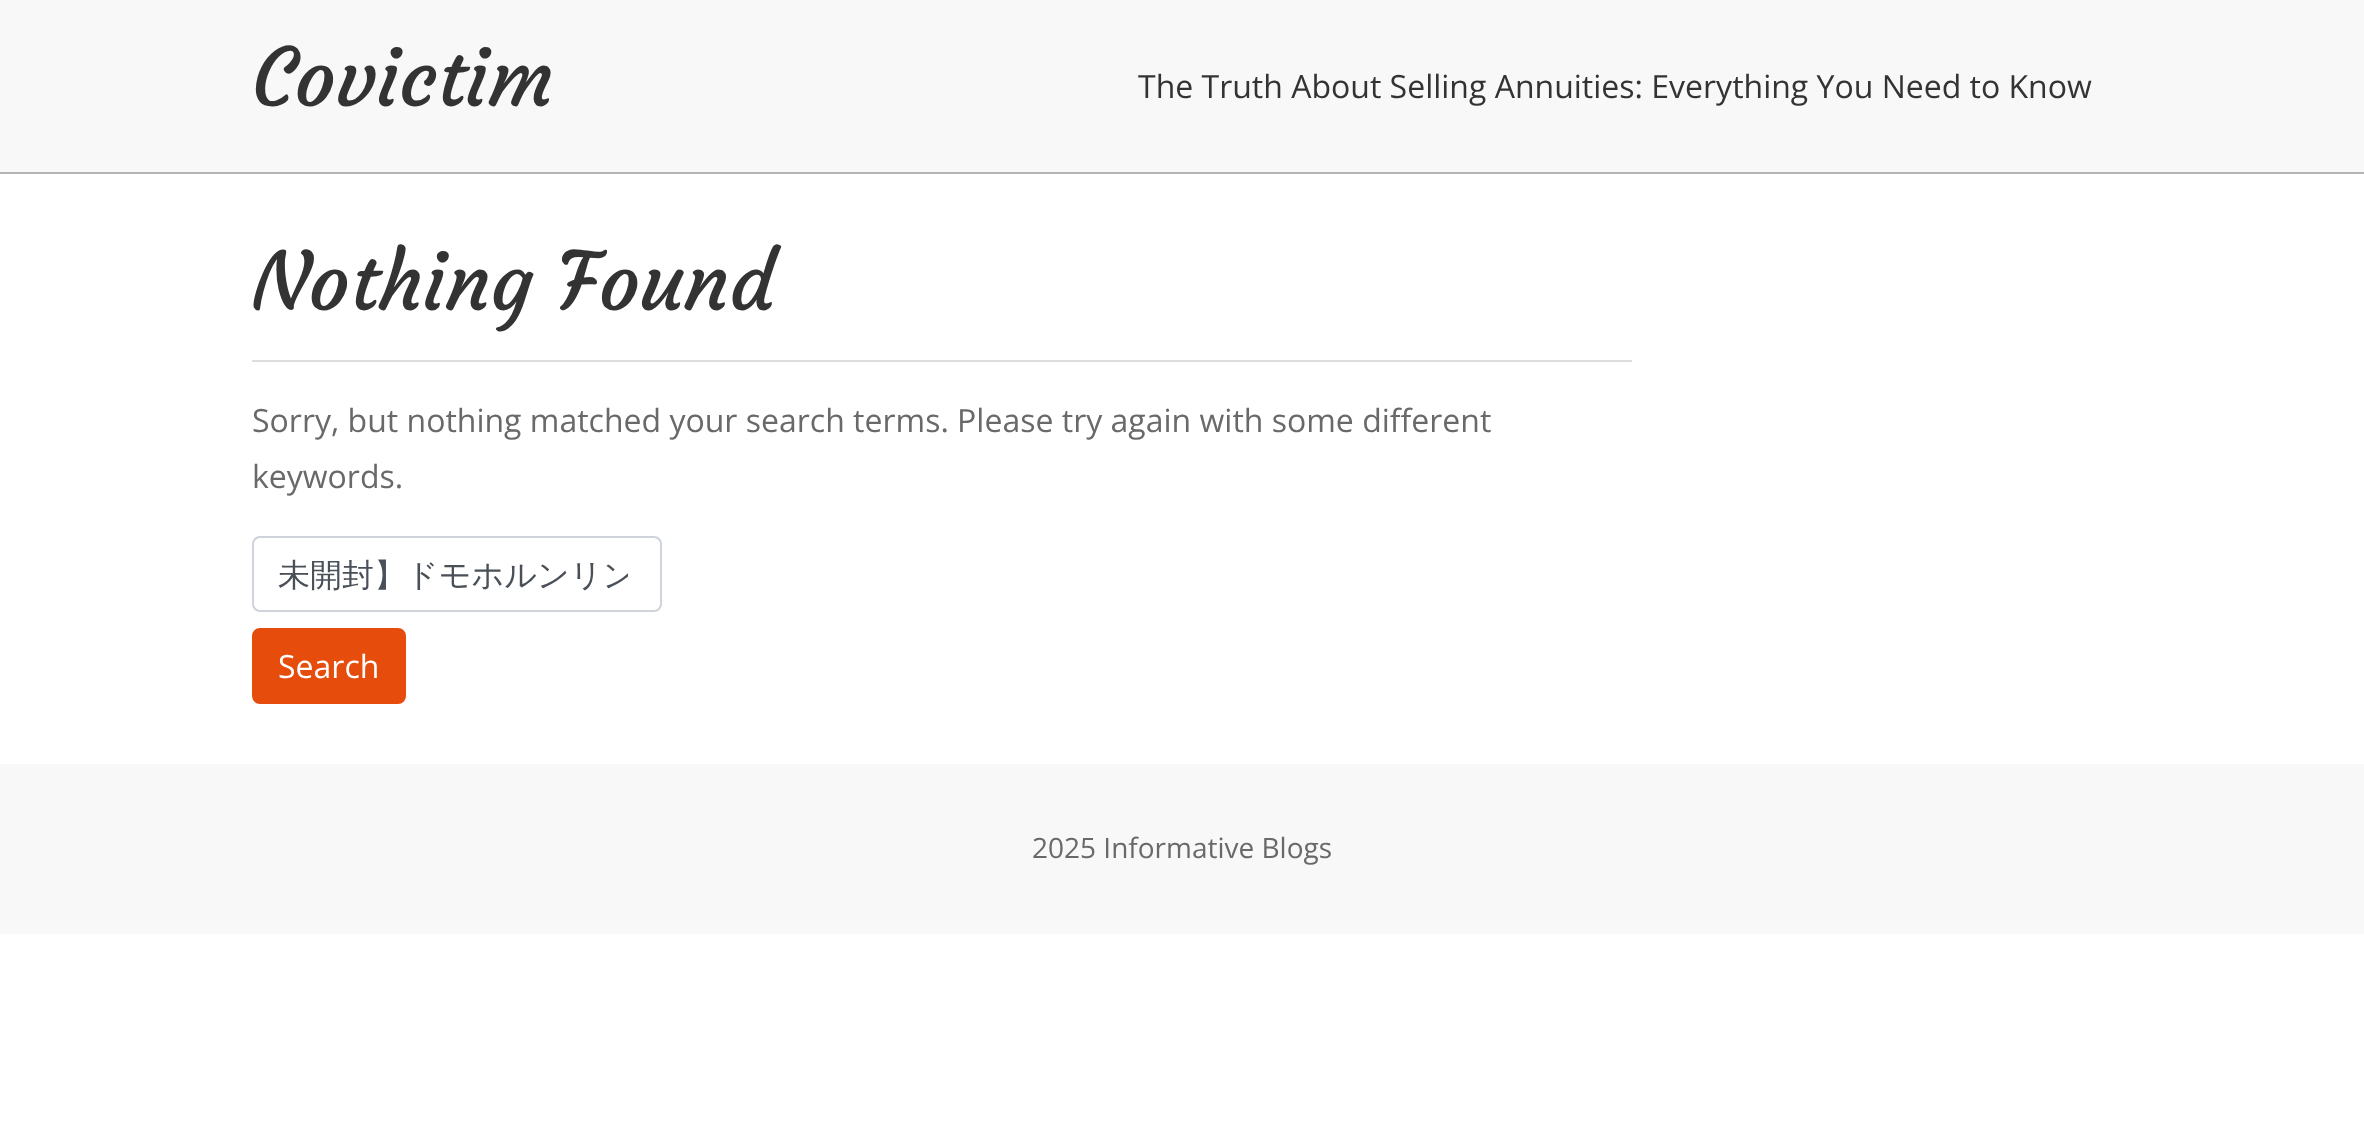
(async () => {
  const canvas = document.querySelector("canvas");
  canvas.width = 2364;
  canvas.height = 1125;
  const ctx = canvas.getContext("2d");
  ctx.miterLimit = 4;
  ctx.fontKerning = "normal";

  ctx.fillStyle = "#ffffff";
  ctx.fillRect(0, 0, 2364, 1125);
  for (const [x, y, w, h, color] of [
    [0, 172, 2364, 2, "#b3b3b3"],
    [0, 0, 2364, 172, "#f8f8f8"],
    [252, 360, 1380, 2, "#dddddd"],
  ]) {
    ctx.fillStyle = color;
    ctx.fillRect(x, y, w, h);
  }
  ctx.beginPath();
  ctx.roundRect(253, 537, 408, 74, 7);
  ctx.strokeStyle = "#ced4da";
  ctx.lineWidth = 2;
  ctx.stroke();
  ctx.fillStyle = "#e64d0d";
  ctx.beginPath();
  ctx.roundRect(253, 629, 152, 74, 7);
  ctx.fill();
  ctx.strokeStyle = "#e64d0d";
  ctx.stroke();
  ctx.fillStyle = "#f8f8f8";
  ctx.fillRect(0, 764, 2364, 170);
  ctx.font = "80px Courgette";
  ctx.fillStyle = "#333333";
  ctx.fillText("Covictim", 252, 106);
  ctx.font = "32px Open Sans";
  ctx.fillText("The Truth About Selling Annuities: Everything You Need to Know", 1138, 98);
  ctx.font = "80px Courgette";
  ctx.fillText("Nothing Found", 252, 310);
  ctx.font = "32px Open Sans";
  ctx.fillStyle = "#696969";
  ctx.fillText("Sorry, but nothing matched your search terms. Please try again with some different", 252, 432);
  ctx.fillText("keywords.", 252, 488);
  ctx.save();
  ctx.beginPath();
  ctx.rect(278, 550, 350, 48);
  ctx.clip();
  ctx.wordSpacing = "-1px";
  ctx.font = "500 32px WenQuanYi Zen Hei";
  ctx.fillStyle = "#495057";
  ctx.fillText("未開封】ドモホルンリン", 278, 586);
  ctx.restore();
  ctx.fillStyle = "#ffffff";
  ctx.fillText("Search", 278, 678);
  ctx.font = "28px Open Sans";
  ctx.fillStyle = "#696969";
  ctx.fillText("2025 Informative Blogs", 1032, 858);
})();
